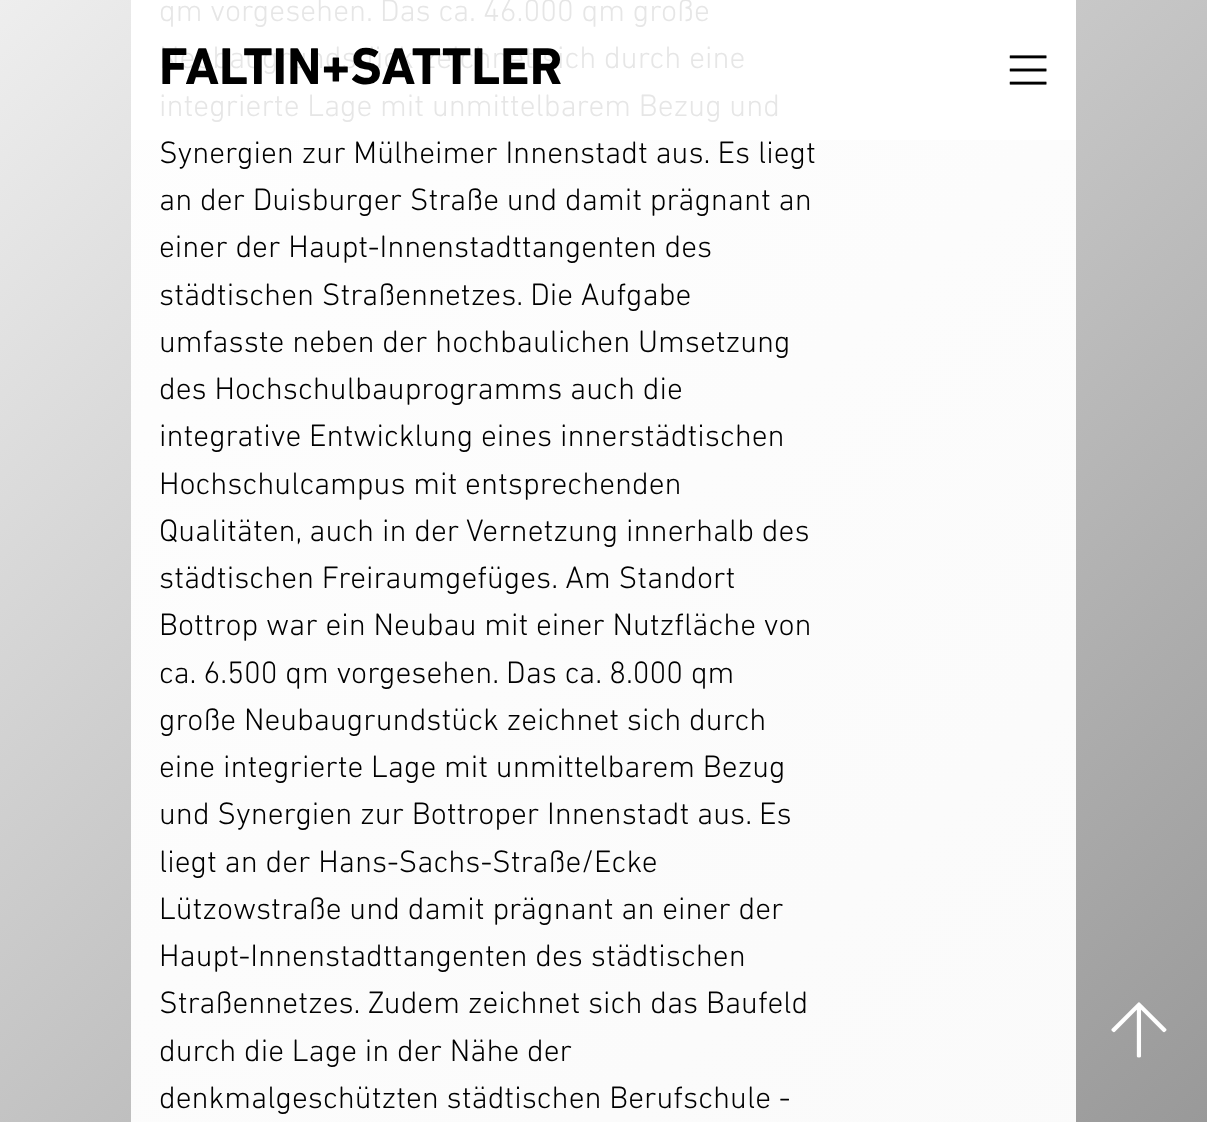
(async () => {
  const canvas = document.querySelector("canvas");
  canvas.width = 1207;
  canvas.height = 1122;
  const ctx = canvas.getContext("2d");
  ctx.miterLimit = 4;
  ctx.fontKerning = "normal";
  async function loadImage(src) {
    const img = new Image();
    img.src = src;
    await img.decode();
    return img;
  }
  let gradient;

  ctx.fillStyle = "#ffffff";
  ctx.fillRect(0, 0, 1207, 1122);
  gradient = ctx.createLinearGradient(43, -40, 1164, 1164);
  gradient.addColorStop(0, "#eeeeee");
  gradient.addColorStop(1, "#999999");
  ctx.fillStyle = gradient;
  ctx.fillRect(0, 0, 1207, 1122);
  gradient = ctx.createLinearGradient(43, -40, 1164, 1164);
  gradient.addColorStop(0, "#fefefe");
  gradient.addColorStop(1, "#fafafa");
  ctx.fillStyle = gradient;
  ctx.fillRect(131, 140, 945, 982);
  gradient = ctx.createLinearGradient(43, -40, 1164, 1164);
  gradient.addColorStop(0, "#ffffff");
  gradient.addColorStop(1, "#ffffff");
  ctx.fillStyle = gradient;
  ctx.fillRect(131, 0, 945, 140);
  ctx.drawImage(await loadImage("img/1.png"), 1111, 1002, 56, 56);
  ctx.drawImage(await loadImage("img/2.png"), 1009, 55, 38, 30);
  ctx.font = "300 31.5px DIN Next";
  ctx.fillStyle = "#e6e6e6";
  for (const [text, x, y] of [
    ["qm vorgesehen. Das ca. 46.000 qm große", 159, 21],
    ["Neubaugrundstück zeichnet sich durch eine", 159, 68],
    ["integrierte Lage mit unmittelbarem Bezug und", 159, 116],
  ]) {
    ctx.fillText(text, x, y);
  }
  ctx.fillStyle = "#000000";
  for (const [text, x, y] of [
    ["Synergien zur Mülheimer Innenstadt aus. Es liegt", 159, 163],
    ["an der Duisburger Straße und damit prägnant an", 159, 210],
    ["einer der Haupt-Innenstadttangenten des", 159, 257],
    ["städtischen Straßennetzes. Die Aufgabe", 159, 305],
    ["umfasste neben der hochbaulichen Umsetzung", 159, 352],
    ["des Hochschulbauprogramms auch die", 159, 399],
    ["integrative Entwicklung eines innerstädtischen", 159, 446],
    ["Hochschulcampus mit entsprechenden", 159, 494],
    ["Qualitäten, auch in der Vernetzung innerhalb des", 159, 541],
    ["städtischen Freiraumgefüges. Am Standort", 159, 588],
    ["Bottrop war ein Neubau mit einer Nutzfläche von", 159, 635],
    ["ca. 6.500 qm vorgesehen. Das ca. 8.000 qm", 159, 683],
    ["große Neubaugrundstück zeichnet sich durch", 159, 730],
    ["eine integrierte Lage mit unmittelbarem Bezug", 159, 777],
    ["und Synergien zur Bottroper Innenstadt aus. Es", 159, 824],
    ["liegt an der Hans-Sachs-Straße/Ecke", 159, 872],
    ["Lützowstraße und damit prägnant an einer der", 159, 919],
    ["Haupt-Innenstadttangenten des städtischen", 159, 966],
    ["Straßennetzes. Zudem zeichnet sich das Baufeld", 159, 1013],
    ["durch die Lage in der Nähe der", 159, 1061],
    ["denkmalgeschützten städtischen Berufschule -", 159, 1108],
  ]) {
    ctx.fillText(text, x, y);
  }
  ctx.font = "bold 52.5px DIN Next";
  ctx.fillText("FALTIN+SATTLER", 159, 84);
})();
